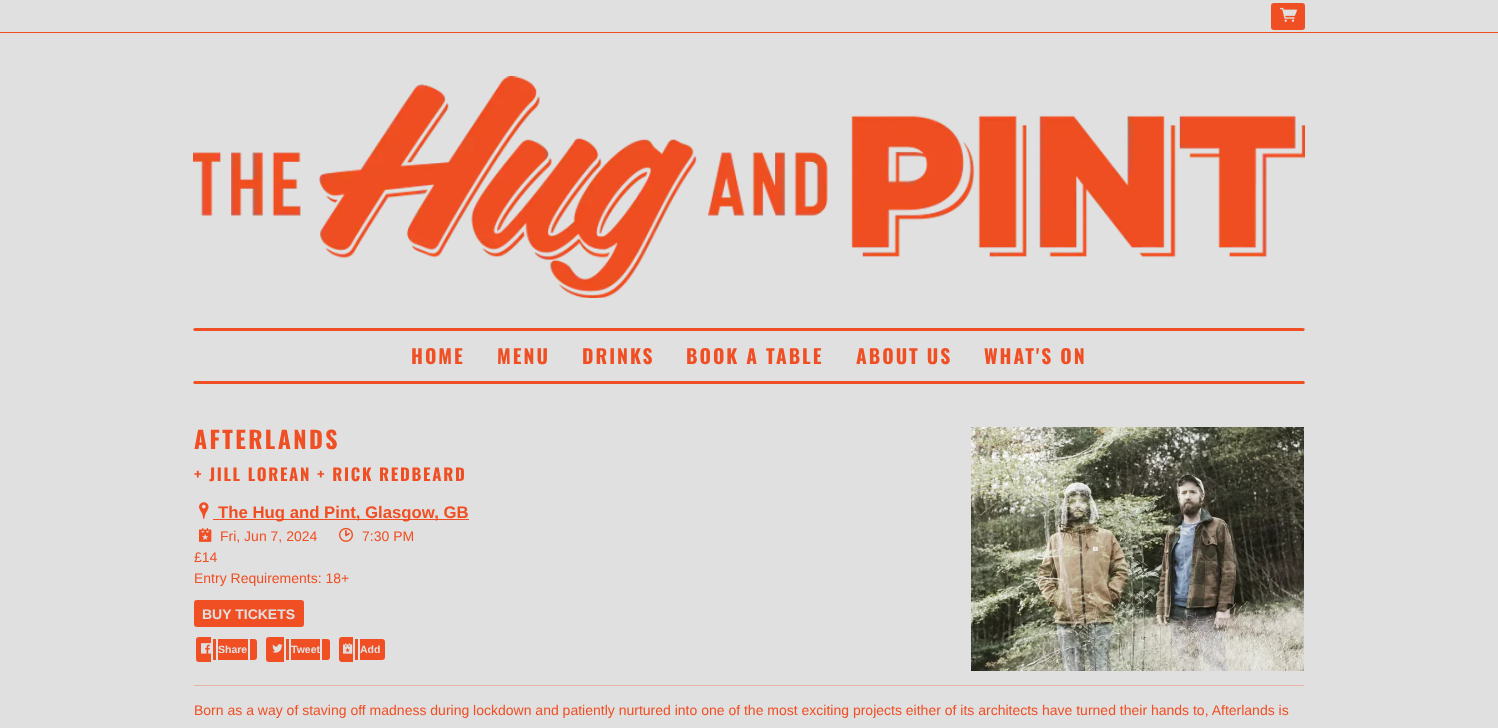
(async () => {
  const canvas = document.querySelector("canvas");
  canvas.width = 1498;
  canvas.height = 728;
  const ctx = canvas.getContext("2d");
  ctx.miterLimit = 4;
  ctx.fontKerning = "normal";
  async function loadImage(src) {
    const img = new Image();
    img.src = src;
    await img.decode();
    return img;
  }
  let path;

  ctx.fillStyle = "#e0e0e0";
  ctx.fillRect(0, 0, 1498, 728);
  ctx.fillStyle = "#f04e23";
  ctx.fillRect(0, 32, 1498, 1);
  ctx.beginPath();
  ctx.roundRect(1271, 3, 34, 27, 3);
  ctx.fill();
  ctx.drawImage(await loadImage("img/1.png"), 1280, 7, 17, 15);
  ctx.drawImage(await loadImage("img/2.png"), 193, 76, 1112, 222);
  path = new Path2D("M196 328C195 328 194 328 193 329L194 331H1304L1305 329C1304 328 1303 328 1302 328Z");
  ctx.fill(path);
  ctx.fillStyle = "#e0e0e0";
  path = new Path2D("M1305 381V329C1303 333 1303 379 1305 383Z");
  ctx.fill(path);
  ctx.fillStyle = "#f04e23";
  path = new Path2D("M196 384H1302C1303 384 1304 384 1305 383L1304 381H194L193 383C194 384 195 384 196 384Z");
  ctx.fill(path);
  ctx.fillStyle = "#e0e0e0";
  path = new Path2D("M193 331V383C195 379 195 333 193 329Z");
  ctx.fill(path);
  ctx.drawImage(await loadImage("img/3.png"), 199, 502, 10, 17);
  ctx.fillStyle = "#f04e23";
  ctx.fillRect(213, 519, 256, 1);
  ctx.drawImage(await loadImage("img/4.png"), 199, 527, 13, 15);
  ctx.drawImage(await loadImage("img/5.png"), 339, 527, 14, 15);
  ctx.beginPath();
  ctx.roundRect(194, 600, 110, 27, 3);
  ctx.fill();
  ctx.beginPath();
  ctx.roundRect(196, 637, 15, 25, [3, 0, 0, 3]);
  ctx.fill();
  ctx.fillRect(213, 639, 3, 21);
  ctx.fillRect(218, 639, 30, 21);
  ctx.beginPath();
  ctx.roundRect(250, 639, 7, 21, [0, 3, 3, 0]);
  ctx.fill();
  ctx.drawImage(await loadImage("img/6.png"), 201, 643, 10, 11);
  ctx.beginPath();
  ctx.roundRect(266, 637, 18, 25, [3, 0, 0, 3]);
  ctx.fill();
  ctx.fillRect(286, 639, 3, 21);
  ctx.fillRect(291, 639, 29, 21);
  ctx.beginPath();
  ctx.roundRect(322, 639, 8, 21, [0, 3, 3, 0]);
  ctx.fill();
  ctx.drawImage(await loadImage("img/7.png"), 272, 644, 11, 9);
  ctx.beginPath();
  ctx.roundRect(339, 637, 14, 25, [3, 0, 0, 3]);
  ctx.fill();
  ctx.fillRect(355, 639, 3, 21);
  ctx.beginPath();
  ctx.roundRect(360, 639, 25, 21, [0, 3, 3, 0]);
  ctx.fill();
  ctx.drawImage(await loadImage("img/8.png"), 343, 643, 10, 11);
  ctx.drawImage(await loadImage("img/9.png"), 971, 427, 333, 244);
  ctx.fillStyle = "#e5b4a7";
  ctx.fillRect(194, 685, 1110, 1);
  ctx.letterSpacing = "2px";
  ctx.font = "bold 19.5px Oswald";
  ctx.fillStyle = "#f04e23";
  for (const [text, x, y] of [
    ["HOME", 411, 364],
    ["MENU", 497, 364],
    ["DRINKS", 582, 364],
    ["BOOK A TABLE", 686, 364],
    ["ABOUT US", 856, 364],
    ["WHAT'S ON", 984, 364],
  ]) {
    ctx.fillText(text, x, y);
  }
  ctx.letterSpacing = "2.4px";
  ctx.font = "bold 23.75px Oswald";
  ctx.fillText("AFTERLANDS", 194, 449);
  ctx.letterSpacing = "1.7px";
  ctx.font = "bold 16.75px Oswald";
  ctx.fillText("+ JILL LOREAN + RICK REDBEARD", 194, 481);
  ctx.letterSpacing = "0px";
  ctx.font = "bold 16.75px Liberation Sans";
  ctx.fillText("The Hug and Pint, Glasgow, GB", 218, 518);
  ctx.font = "14px Liberation Sans";
  for (const [text, x, y] of [
    ["Fri, Jun 7, 2024", 220, 541],
    ["7:30 PM", 362, 541],
    ["£14", 194, 562],
    ["Entry Requirements: 18+", 194, 583],
  ]) {
    ctx.fillText(text, x, y);
  }
  ctx.font = "bold 14px Liberation Sans";
  ctx.fillStyle = "#e0e0e0";
  ctx.fillText("BUY TICKETS", 202, 619);
  ctx.font = "bold 10.5px Liberation Sans";
  for (const [text, x, y] of [
    ["Share", 218, 653],
    ["Tweet", 291, 653],
    ["Add", 360, 653],
  ]) {
    ctx.fillText(text, x, y);
  }
  ctx.font = "14px Liberation Sans";
  ctx.fillStyle = "#f04e23";
  ctx.fillText("Born as a way of staving off madness during lockdown and patiently nurtured into one of the most exciting projects either of its architects have turned their hands to, Afterlands is", 194, 715);
})();
